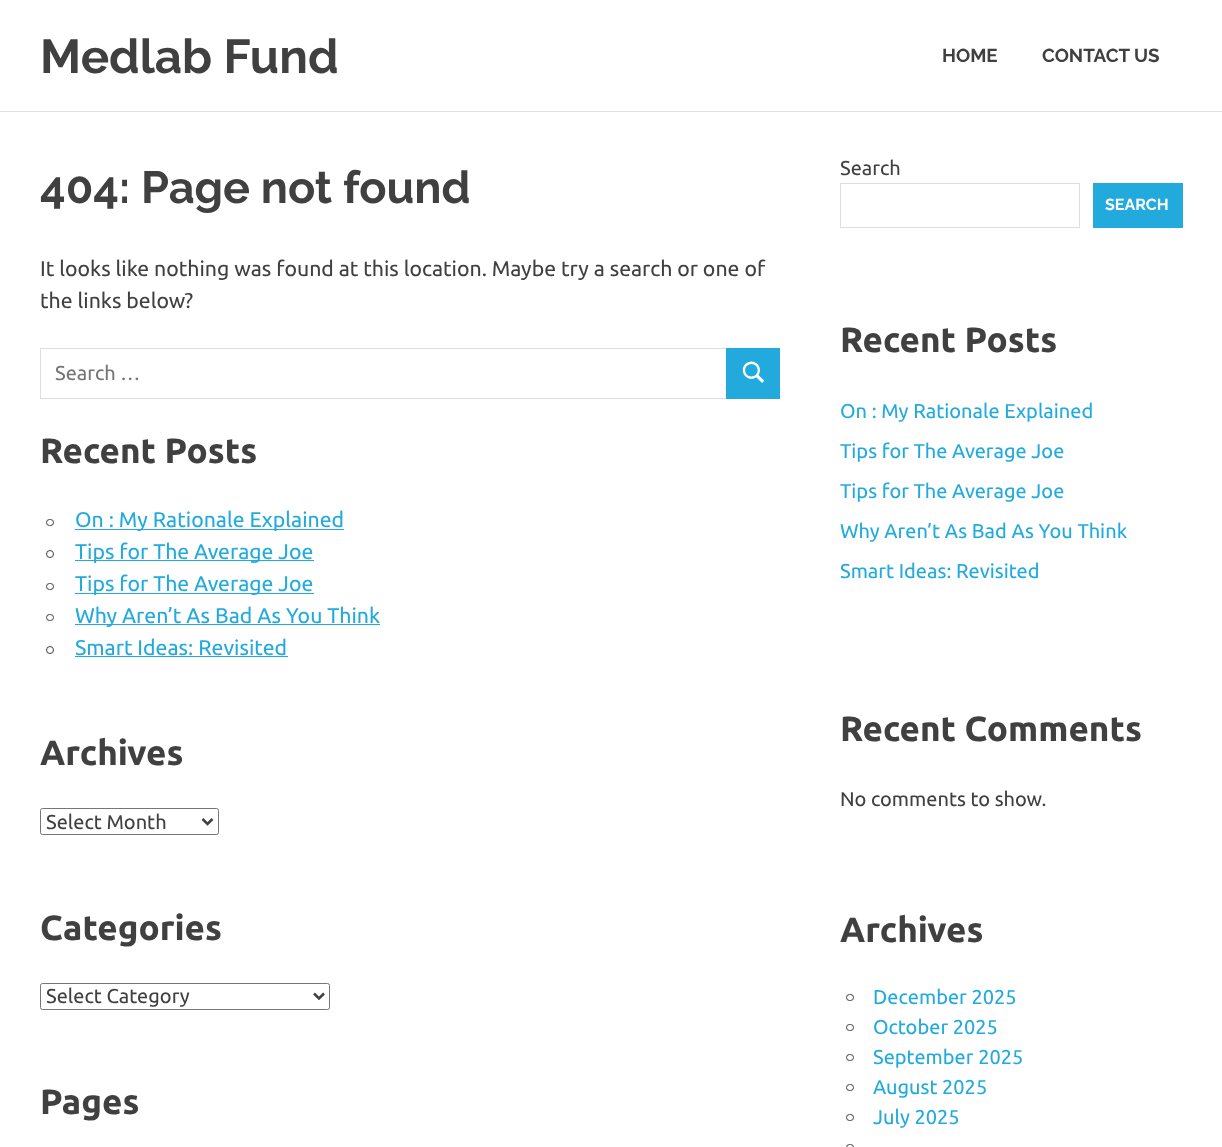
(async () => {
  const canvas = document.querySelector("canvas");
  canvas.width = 1222;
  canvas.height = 1147;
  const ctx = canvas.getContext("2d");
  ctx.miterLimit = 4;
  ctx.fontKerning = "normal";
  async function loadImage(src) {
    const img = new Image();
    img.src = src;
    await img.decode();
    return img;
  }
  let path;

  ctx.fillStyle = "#ffffff";
  ctx.fillRect(0, 0, 1222, 1147);
  ctx.fillStyle = "#e0e0e0";
  ctx.fillRect(0, 111, 1222, 1);
  ctx.strokeStyle = "#dddddd";
  ctx.strokeRect(40.5, 348.5, 687, 50);
  ctx.fillStyle = "#22aadd";
  ctx.fillRect(726, 348, 54, 51);
  ctx.drawImage(await loadImage("img/1.png"), 742, 361, 23, 22);
  ctx.beginPath();
  ctx.roundRect(46.5, 519.5, 7, 6, 3);
  ctx.strokeStyle = "#404040";
  ctx.stroke();
  ctx.fillRect(75, 529, 269, 1);
  ctx.beginPath();
  ctx.arc(50, 554, 3.5, 0, Math.PI * 2);
  ctx.stroke();
  ctx.fillRect(75, 560, 239, 1);
  ctx.beginPath();
  ctx.roundRect(46.5, 583.5, 7, 6, 3);
  ctx.stroke();
  ctx.fillRect(75, 593, 239, 1);
  ctx.beginPath();
  ctx.roundRect(46.5, 614.5, 7, 6, 3);
  ctx.stroke();
  ctx.fillRect(75, 624, 305, 1);
  ctx.beginPath();
  ctx.arc(50, 650, 3.5, 0, Math.PI * 2);
  ctx.stroke();
  ctx.fillRect(75, 656, 213, 1);
  ctx.beginPath();
  ctx.roundRect(40.5, 808.5, 178, 26, 2);
  ctx.strokeStyle = "#767676";
  ctx.stroke();
  path = new Path2D("M202.5 819L207.5 824L212.5 819");
  ctx.strokeStyle = "#404040";
  ctx.lineWidth = 2.5;
  ctx.stroke(path);
  ctx.beginPath();
  ctx.roundRect(40.5, 983.5, 289, 26, 2);
  ctx.strokeStyle = "#767676";
  ctx.lineWidth = 1;
  ctx.stroke();
  path = new Path2D("M314 993.5L319 998.5L324 993.5");
  ctx.strokeStyle = "#404040";
  ctx.lineWidth = 2.5;
  ctx.stroke(path);
  ctx.strokeStyle = "#dddddd";
  ctx.lineWidth = 1;
  ctx.strokeRect(840.5, 183.5, 239, 44);
  ctx.fillRect(1093, 183, 90, 45);
  ctx.beginPath();
  ctx.roundRect(846.5, 994.5, 7, 6, 3);
  ctx.strokeStyle = "#404040";
  ctx.stroke();
  ctx.beginPath();
  ctx.roundRect(846.5, 1024.5, 7, 6, 3);
  ctx.stroke();
  ctx.beginPath();
  ctx.roundRect(846.5, 1054.5, 7, 6, 3);
  ctx.stroke();
  ctx.beginPath();
  ctx.roundRect(846.5, 1084.5, 7, 6, 3);
  ctx.stroke();
  ctx.beginPath();
  ctx.roundRect(846.5, 1114.5, 7, 6, 3);
  ctx.stroke();
  ctx.beginPath();
  ctx.roundRect(846.5, 1144.5, 7, 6, 3);
  ctx.stroke();
  ctx.font = "bold 47.5px Raleway";
  ctx.fillStyle = "#404040";
  ctx.fillText("Medlab Fund", 40, 73);
  ctx.font = "bold 18.75px Raleway";
  ctx.fillText("HOME", 942, 62);
  ctx.fillText("CONTACT US", 1042, 62);
  ctx.font = "bold 45px Raleway";
  ctx.fillText("404: Page not found", 40, 203);
  ctx.font = "21.25px Ubuntu";
  ctx.fillText("It looks like nothing was found at this location. Maybe try a search or one of", 40, 276);
  ctx.fillText("the links below?", 40, 308);
  ctx.font = "20px Ubuntu";
  ctx.fillStyle = "#757575";
  ctx.fillText("Search …", 55, 380);
  ctx.font = "bold 35px Ubuntu";
  ctx.fillStyle = "#404040";
  ctx.fillText("Recent Posts", 40, 463);
  ctx.font = "21.25px Ubuntu";
  ctx.fillStyle = "#22aadd";
  for (const [text, x, y] of [
    ["On : My Rationale Explained", 75, 527],
    ["Tips for The Average Joe", 75, 559],
    ["Tips for The Average Joe", 75, 591],
    ["Why Aren’t As Bad As You Think", 75, 623],
    ["Smart Ideas: Revisited", 75, 655],
  ]) {
    ctx.fillText(text, x, y);
  }
  ctx.font = "bold 35px Ubuntu";
  ctx.fillStyle = "#404040";
  ctx.fillText("Archives", 40, 765);
  ctx.font = "20px Ubuntu";
  ctx.fillText("Select Month", 46, 829);
  ctx.font = "bold 35px Ubuntu";
  ctx.fillText("Categories", 40, 940);
  ctx.font = "20px Ubuntu";
  ctx.fillText("Select Category", 46, 1003);
  ctx.font = "bold 35px Ubuntu";
  ctx.fillText("Pages", 40, 1114);
  ctx.font = "20px Ubuntu";
  ctx.fillText("Search", 840, 175);
  ctx.font = "bold 16px Raleway";
  ctx.fillStyle = "#ffffff";
  ctx.fillText("SEARCH", 1105, 210);
  ctx.font = "bold 35px Ubuntu";
  ctx.fillStyle = "#404040";
  ctx.fillText("Recent Posts", 840, 352);
  ctx.font = "20px Ubuntu";
  ctx.fillStyle = "#22aadd";
  for (const [text, x, y] of [
    ["On : My Rationale Explained", 840, 418],
    ["Tips for The Average Joe", 840, 458],
    ["Tips for The Average Joe", 840, 498],
    ["Why Aren’t As Bad As You Think", 840, 538],
    ["Smart Ideas: Revisited", 840, 578],
  ]) {
    ctx.fillText(text, x, y);
  }
  ctx.font = "bold 35px Ubuntu";
  ctx.fillStyle = "#404040";
  ctx.fillText("Recent Comments", 840, 741);
  ctx.font = "20px Ubuntu";
  ctx.fillText("No comments to show.", 840, 806);
  ctx.font = "bold 35px Ubuntu";
  ctx.fillText("Archives", 840, 942);
  ctx.font = "20px Ubuntu";
  ctx.fillStyle = "#22aadd";
  for (const [text, x, y] of [
    ["December 2025", 873, 1004],
    ["October 2025", 873, 1034],
    ["September 2025", 873, 1064],
    ["August 2025", 873, 1094],
    ["July 2025", 873, 1124],
  ]) {
    ctx.fillText(text, x, y);
  }
})();
